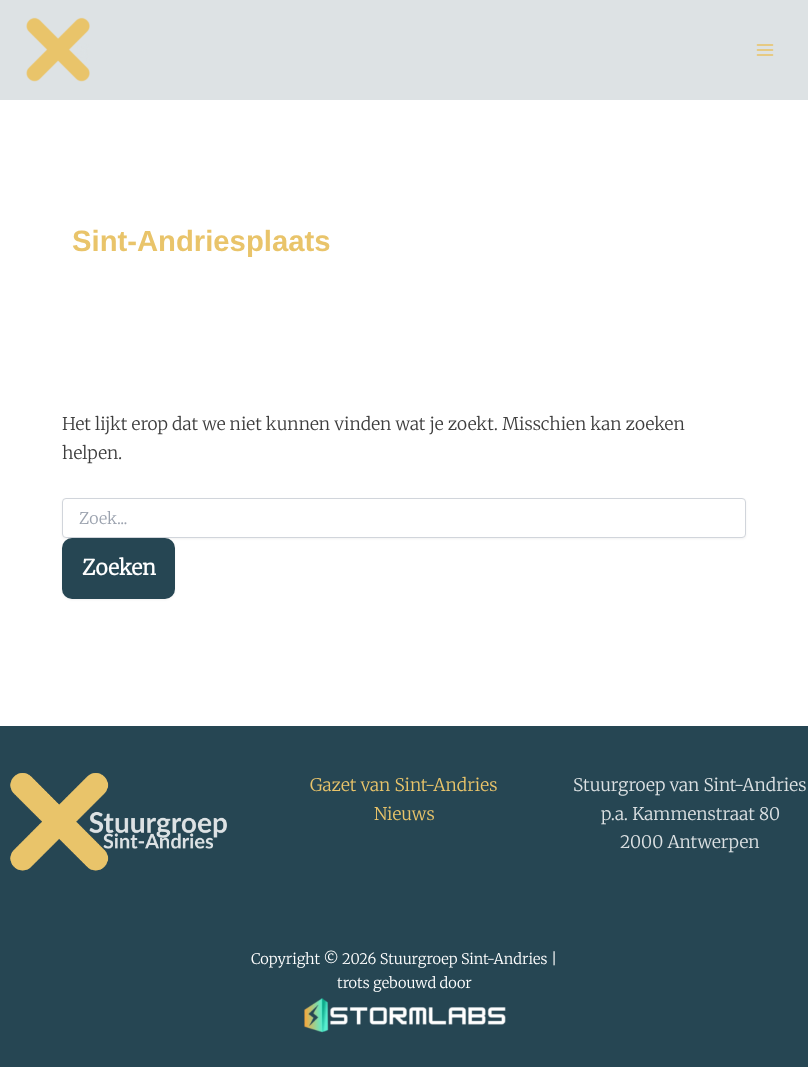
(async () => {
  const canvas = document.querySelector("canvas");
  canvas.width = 808;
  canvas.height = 1067;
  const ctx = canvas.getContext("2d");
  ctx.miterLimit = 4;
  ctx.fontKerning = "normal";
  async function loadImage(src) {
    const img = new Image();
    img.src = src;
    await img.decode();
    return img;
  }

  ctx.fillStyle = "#ffffff";
  ctx.fillRect(0, 0, 808, 1067);
  ctx.fillStyle = "#dde2e4";
  ctx.fillRect(0, 0, 808, 100);
  ctx.drawImage(await loadImage("img/1.png"), 26, 17, 64, 65);
  ctx.drawImage(await loadImage("img/2.png"), 756, 44, 18, 12);
  ctx.fillStyle = "rgba(0, 0, 0, 0.05)";
  ctx.filter = "blur(1px)";
  ctx.beginPath();
  ctx.roundRect(62, 499, 684, 40, 4);
  ctx.fill();
  ctx.filter = "none";
  ctx.fillStyle = "#ffffff";
  ctx.beginPath();
  ctx.roundRect(62.5, 498.5, 683, 39, 3.5);
  ctx.fill();
  ctx.strokeStyle = "#d1d5db";
  ctx.stroke();
  ctx.fillStyle = "rgba(0, 0, 0, 0.05)";
  ctx.filter = "blur(1px)";
  ctx.beginPath();
  ctx.roundRect(62, 539, 113, 61, 10);
  ctx.fill();
  ctx.filter = "none";
  ctx.fillStyle = "#264653";
  ctx.beginPath();
  ctx.roundRect(62, 538, 113, 61, 10);
  ctx.fill();
  ctx.fillRect(0, 726, 808, 341);
  ctx.drawImage(await loadImage("img/3.png"), 10, 773, 217, 98);
  ctx.drawImage(await loadImage("img/4.png"), 304, 998, 202, 35);
  ctx.font = "bold 29.25px Liberation Sans";
  ctx.fillStyle = "#e9c46a";
  ctx.fillText("Sint-Andriesplaats", 72, 251);
  ctx.font = "300 17.35px Merriweather";
  ctx.fillStyle = "#3d3d3d";
  ctx.fillText("Het lijkt erop dat we niet kunnen vinden wat je zoekt. Misschien kan zoeken", 62, 430);
  ctx.fillText("helpen.", 62, 459);
  ctx.font = "300 16px Merriweather";
  ctx.fillStyle = "#9ca3af";
  ctx.fillText("Zoek...", 79, 524);
  ctx.font = "bold 21px Merriweather";
  ctx.fillStyle = "#ffffff";
  ctx.fillText("Zoeken", 82, 575);
  ctx.font = "300 17.35px Merriweather";
  ctx.fillStyle = "#e9c46a";
  ctx.fillText("Gazet van Sint-Andries", 310, 791);
  ctx.fillText("Nieuws", 374, 820);
  ctx.fillStyle = "#dde2e4";
  for (const [text, x, y] of [
    ["Stuurgroep van Sint-Andries", 573, 791],
    ["p.a. Kammenstraat 80", 601, 820],
    ["2000 Antwerpen", 620, 848],
  ]) {
    ctx.fillText(text, x, y);
  }
  ctx.font = "300 14.6px Merriweather";
  ctx.fillStyle = "#ffffff";
  ctx.fillText("Copyright © 2026 Stuurgroep Sint-Andries |", 251, 964);
  ctx.fillText("trots gebouwd door", 337, 988);
})();
